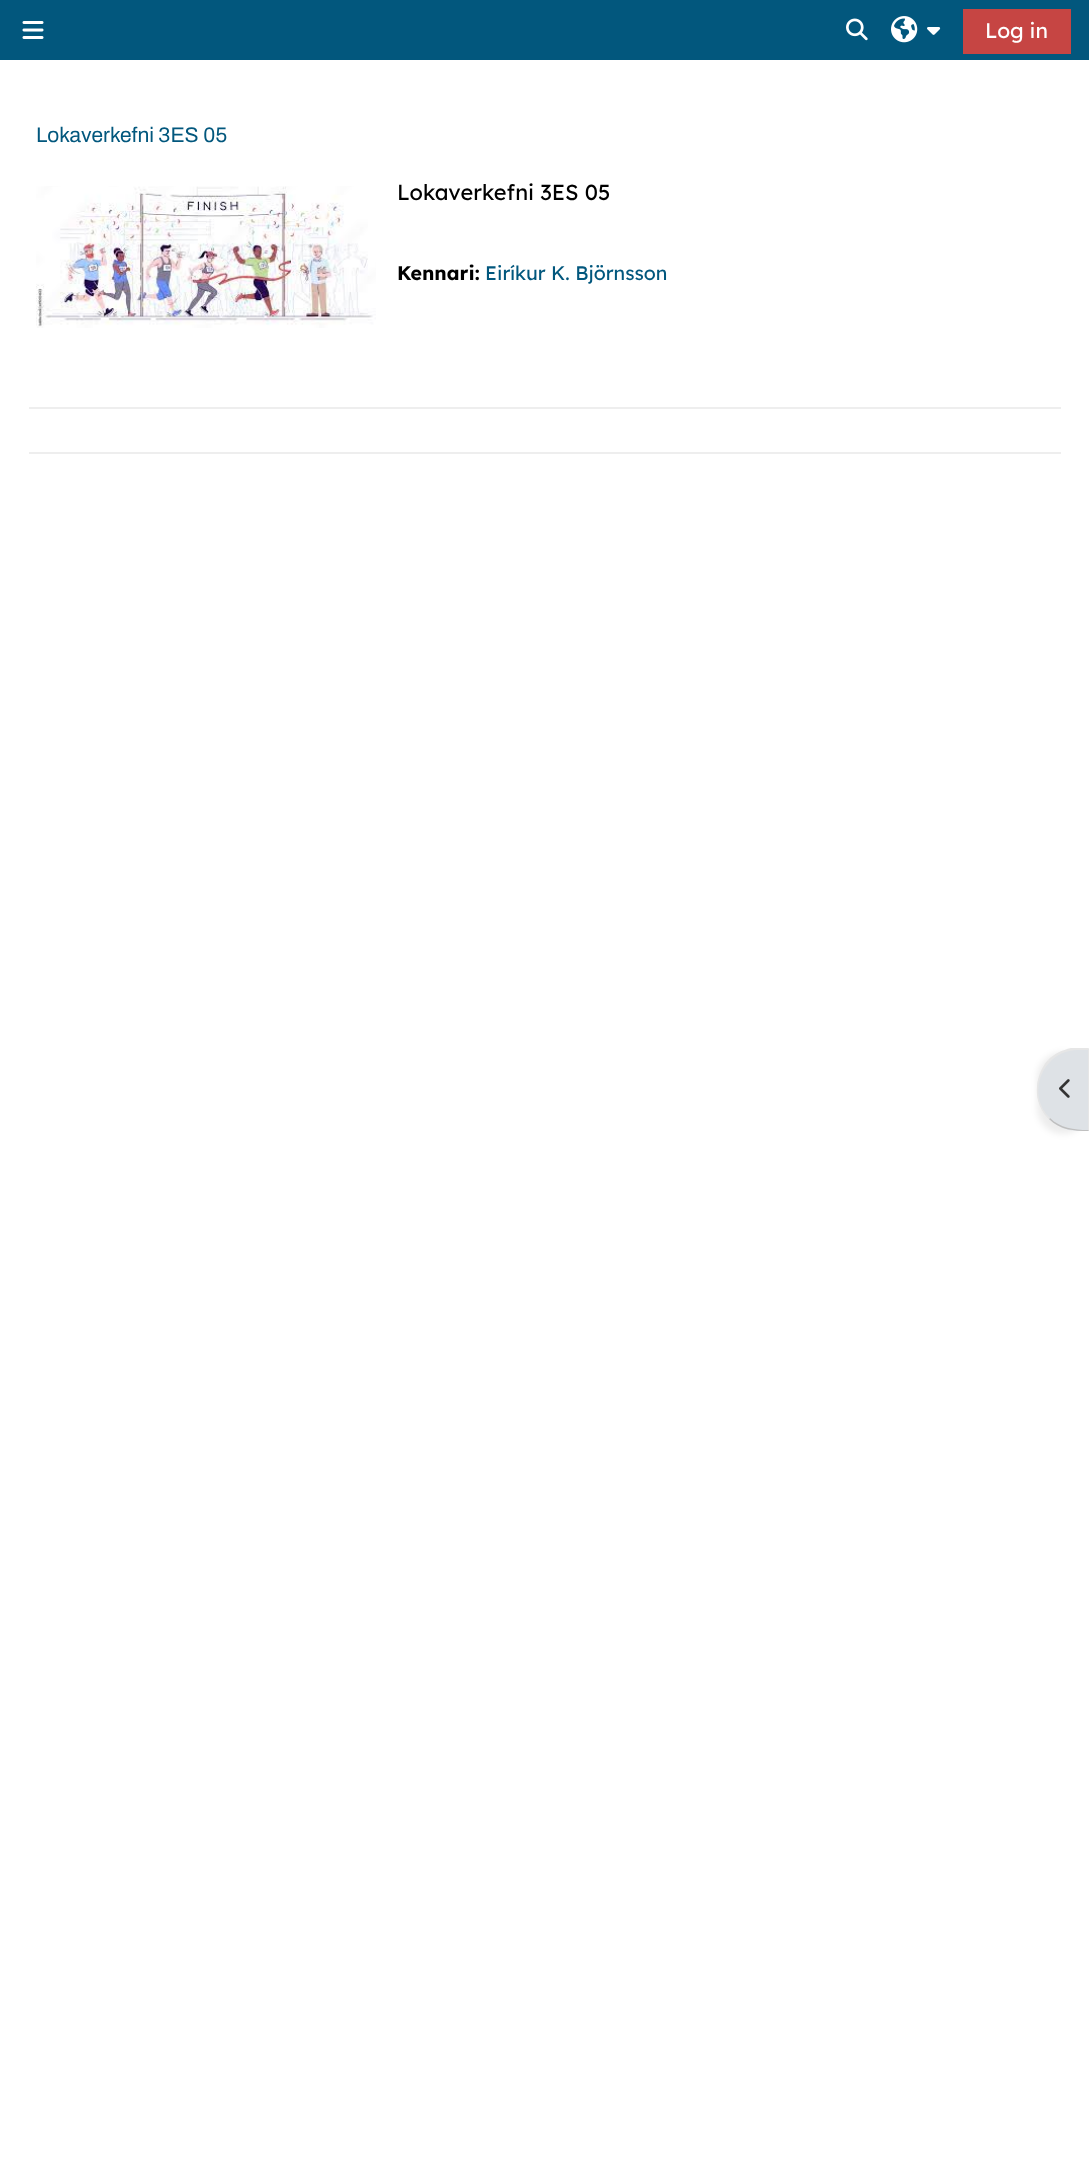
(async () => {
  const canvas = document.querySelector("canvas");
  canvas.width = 1089;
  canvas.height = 2178;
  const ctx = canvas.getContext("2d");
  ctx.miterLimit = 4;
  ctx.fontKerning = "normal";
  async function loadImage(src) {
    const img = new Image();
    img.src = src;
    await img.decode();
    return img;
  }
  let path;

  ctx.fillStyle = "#ffffff";
  ctx.fillRect(0, 0, 1089, 2178);
  ctx.fillStyle = "#02577d";
  ctx.fillRect(0, 0, 1089, 60);
  ctx.drawImage(await loadImage("img/1.png"), 22, 21, 22, 18);
  ctx.drawImage(await loadImage("img/2.png"), 846, 18, 22, 23);
  ctx.drawImage(await loadImage("img/3.png"), 891, 16, 27, 27);
  ctx.drawImage(await loadImage("img/4.png"), 927, 27, 14, 8);
  ctx.fillStyle = "#c64543";
  ctx.fillRect(963, 9, 108, 45);
  ctx.drawImage(await loadImage("img/5.png"), 36, 186, 340, 142);
  ctx.fillStyle = "#eeeeee";
  ctx.fillRect(29, 407, 1032, 2);
  ctx.fillRect(29, 452, 1032, 2);
  ctx.fillStyle = "rgba(0, 0, 0, 0.07)";
  ctx.filter = "blur(3px)";
  ctx.beginPath();
  ctx.roundRect(1037, 1052, 52, 82, 41);
  ctx.fill();
  ctx.filter = "none";
  ctx.fillStyle = "#dee2e6";
  ctx.beginPath();
  ctx.roundRect(1037, 1049, 52, 82, [41, 0, 0, 41]);
  ctx.fill();
  ctx.fillStyle = "#e6e6e6";
  path = new Path2D("M1078 1050C1066 1050 1056 1055 1050 1062L1048 1060C1054 1054 1062 1050 1071 1048H1089L1088 1050Z");
  ctx.fill(path);
  path = new Path2D("M1089 1048L1088 1050V1130L1089 1131Z");
  ctx.fill(path);
  ctx.fillStyle = "#bfbfbf";
  path = new Path2D("M1089 1131L1088 1130C1074 1130 1060 1128 1050 1118L1049 1119C1060 1130 1074 1131 1089 1131Z");
  ctx.fill(path);
  ctx.fillStyle = "#e6e6e6";
  path = new Path2D("M1049 1119C1032 1103 1034 1076 1048 1060L1050 1062C1035 1077 1034 1103 1050 1118Z");
  ctx.fill(path);
  ctx.drawImage(await loadImage("img/6.png"), 1059, 1079, 11, 19);
  ctx.font = "21px Lexend Deca";
  ctx.fillStyle = "#ffffff";
  ctx.fillText("Log in", 985, 38);
  ctx.font = "21px Archivo";
  ctx.fillStyle = "#02577d";
  ctx.fillText("Lokaverkefni 3ES 05", 36, 142);
  ctx.font = "21.75px Lexend Deca";
  ctx.fillStyle = "#000000";
  ctx.fillText("Lokaverkefni 3ES 05", 397, 200);
  ctx.font = "bold 19.5px Lexend Deca";
  ctx.fillText("Kennari:", 397, 280);
  ctx.font = "19.5px Lexend Deca";
  ctx.fillStyle = "#02577d";
  ctx.fillText("Eiríkur K. Björnsson", 485, 280);
})();
